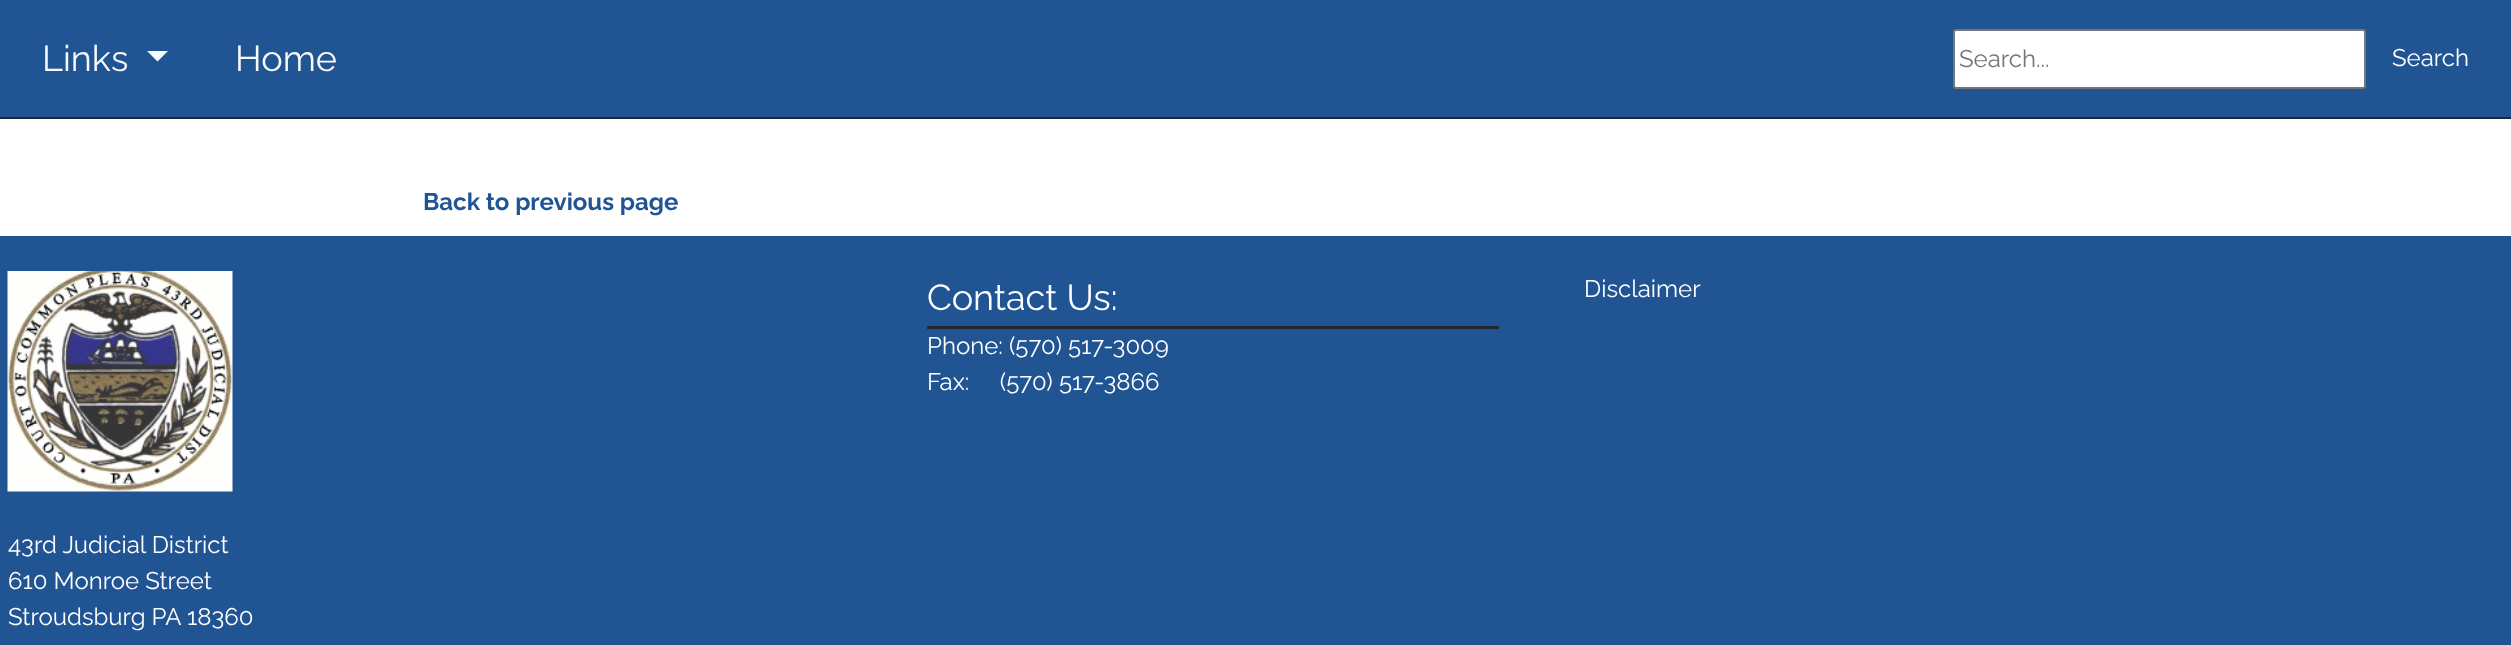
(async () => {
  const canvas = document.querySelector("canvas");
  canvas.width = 2511;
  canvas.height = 645;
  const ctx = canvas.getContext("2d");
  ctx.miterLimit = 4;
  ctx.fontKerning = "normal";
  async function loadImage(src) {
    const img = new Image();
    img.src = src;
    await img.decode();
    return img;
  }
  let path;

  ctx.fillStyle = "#ffffff";
  ctx.fillRect(0, 0, 2511, 645);
  ctx.fillStyle = "#205493";
  ctx.fillRect(0, 0, 2511, 117);
  ctx.fillStyle = "#1f2933";
  ctx.fillRect(0, 117, 2511, 2);
  ctx.fillStyle = "#f8f9fa";
  path = new Path2D("M147 51H168L157.5 61.5Z");
  ctx.fill(path);
  ctx.fillStyle = "#ffffff";
  ctx.beginPath();
  ctx.roundRect(1954, 30, 411, 58, 2);
  ctx.fill();
  ctx.strokeStyle = "#767676";
  ctx.lineWidth = 2;
  ctx.stroke();
  ctx.fillStyle = "#205493";
  ctx.fillRect(0, 236, 2511, 409);
  ctx.fillStyle = "#1f2933";
  ctx.fillRect(927, 326, 572, 3);
  ctx.drawImage(await loadImage("img/1.png"), 7, 271, 226, 221);
  ctx.font = "36px Raleway";
  ctx.fillStyle = "#f8f9fa";
  ctx.fillText("Links", 42, 71);
  ctx.fillText("Home", 235, 71);
  ctx.font = "24px Raleway";
  ctx.fillStyle = "#757575";
  ctx.fillText("Search...", 1959, 67);
  ctx.fillStyle = "#ffffff";
  ctx.fillText("Search", 2392, 66);
  ctx.font = "bold 24px Raleway";
  ctx.fillStyle = "#205493";
  ctx.fillText("Back to previous page", 423, 210);
  ctx.font = "36px Raleway";
  ctx.fillStyle = "#ffffff";
  ctx.fillText("Contact Us:", 927, 310);
  ctx.font = "24px Raleway";
  for (const [text, x, y] of [
    ["Phone: (570) 517-3009", 927, 354],
    ["Fax:     (570) 517-3866", 927, 390],
    ["Disclaimer", 1584, 297],
    ["43rd Judicial District", 8, 553],
    ["610 Monroe Street", 8, 589],
    ["Stroudsburg PA 18360", 8, 625],
  ]) {
    ctx.fillText(text, x, y);
  }
})();
